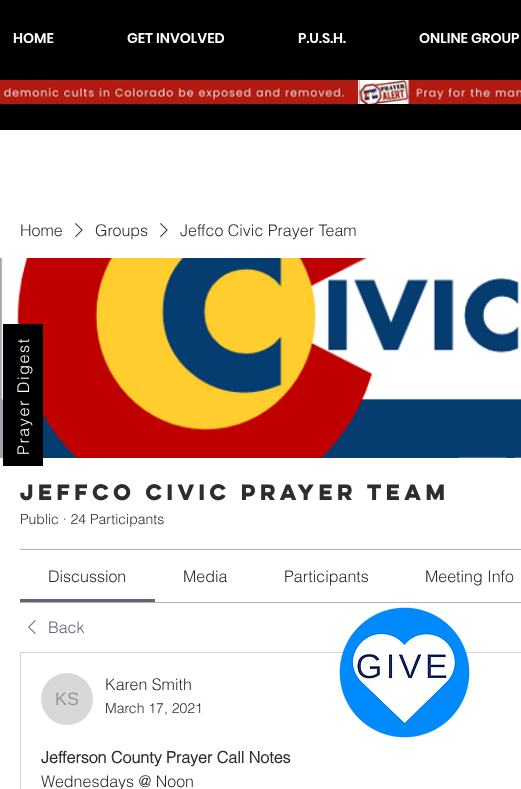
(async () => {
  const canvas = document.querySelector("canvas");
  canvas.width = 521;
  canvas.height = 789;
  const ctx = canvas.getContext("2d");
  ctx.miterLimit = 4;
  ctx.fontKerning = "normal";
  async function loadImage(src) {
    const img = new Image();
    img.src = src;
    await img.decode();
    return img;
  }

  ctx.fillStyle = "#ffffff";
  ctx.fillRect(0, 0, 521, 789);
  ctx.fillStyle = "#000000";
  ctx.fillRect(0, 0, 521, 130);
  ctx.drawImage(await loadImage("img/1.png"), 0, 80, 358, 24);
  ctx.fillStyle = "#eaeaea";
  ctx.fillRect(358, 80, 1, 24);
  ctx.drawImage(await loadImage("img/2.png"), 359, 80, 162, 24);
  ctx.drawImage(await loadImage("img/3.png"), 75, 223, 8, 14);
  ctx.drawImage(await loadImage("img/3.png"), 160, 223, 8, 14);
  ctx.fillStyle = "#a0a2ac";
  ctx.fillRect(0, 258, 3, 200);
  ctx.drawImage(await loadImage("img/4.png"), 1, 258, 520, 200);
  for (const [x, y, w, h, color] of [
    [20, 549, 501, 1, "#b0b2b8"],
    [20, 602, 501, 1, "#b0b2b8"],
    [20, 599, 135, 3, "#616475"],
  ]) {
    ctx.fillStyle = color;
    ctx.fillRect(x, y, w, h);
  }
  ctx.drawImage(await loadImage("img/5.png"), 28, 620, 8, 14);
  ctx.strokeStyle = "#d5d5d5";
  ctx.strokeRect(20.5, 652.5, 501, 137);
  ctx.fillStyle = "#d8d8d8";
  ctx.beginPath();
  ctx.arc(67, 699, 26, 0, Math.PI * 2);
  ctx.fill();
  ctx.drawImage(await loadImage("img/6.png"), 339, 607, 131, 131);
  for (const [x, y, w, h, color] of [
    [3, 324, 40, 142, "#000000"],
    [478, 726, 3, 3, "#fffdfa"],
    [483, 772, 3, 3, "#fffdfa"],
  ]) {
    ctx.fillStyle = color;
    ctx.fillRect(x, y, w, h);
  }
  ctx.font = "600 14px Poppins";
  ctx.fillStyle = "#ffffff";
  for (const [text, x, y] of [
    ["HOME", 13, 43],
    ["GET INVOLVED", 127, 43],
    ["P.U.S.H.", 298, 43],
    ["ONLINE GROUP", 419, 43],
  ]) {
    ctx.fillText(text, x, y);
  }
  ctx.font = "300 16px helvetica";
  ctx.fillStyle = "#2c2d2e";
  for (const [text, x, y] of [
    ["Home", 20, 236],
    ["Groups", 95, 236],
    ["Jeffco Civic Prayer Team", 180, 236],
  ]) {
    ctx.fillText(text, x, y);
  }
  ctx.font = "bold 20px 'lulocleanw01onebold'";
  ctx.fillText("Jeffco Civic Prayer Team", 20, 500);
  ctx.font = "300 14px helvetica";
  ctx.fillText("Public · 24 Participants", 20, 524);
  ctx.font = "300 16px helvetica";
  for (const [text, x, y] of [
    ["Discussion", 48, 582],
    ["Media", 183, 582],
    ["Participants", 284, 582],
    ["Meeting Info", 425, 582],
  ]) {
    ctx.fillText(text, x, y);
  }
  ctx.fillStyle = "#616475";
  ctx.fillText("Back", 48, 633);
  ctx.font = "18px Liberation Sans";
  ctx.fillStyle = "#979797";
  ctx.fillText("KS", 55, 705);
  ctx.font = "300 16px helvetica";
  ctx.fillStyle = "#2c2d2e";
  ctx.fillText("Karen Smith", 105, 690);
  ctx.font = "300 14px helvetica";
  ctx.fillText("March 17, 2021", 105, 713);
  ctx.font = "bold 16px helvetica";
  ctx.fillText("Jefferson County Prayer Call Notes", 41, 763);
  ctx.font = "300 16px helvetica";
  ctx.fillText("Wednesdays @ Noon", 41, 787);
  ctx.letterSpacing = "1.6px";
  ctx.fillStyle = "#ffffff";
  ctx.save();
  ctx.translate(29, 455);
  ctx.rotate(-90 * Math.PI / 180);
  ctx.fillText("Prayer Digest", 0, 0);
  ctx.restore();
})();
